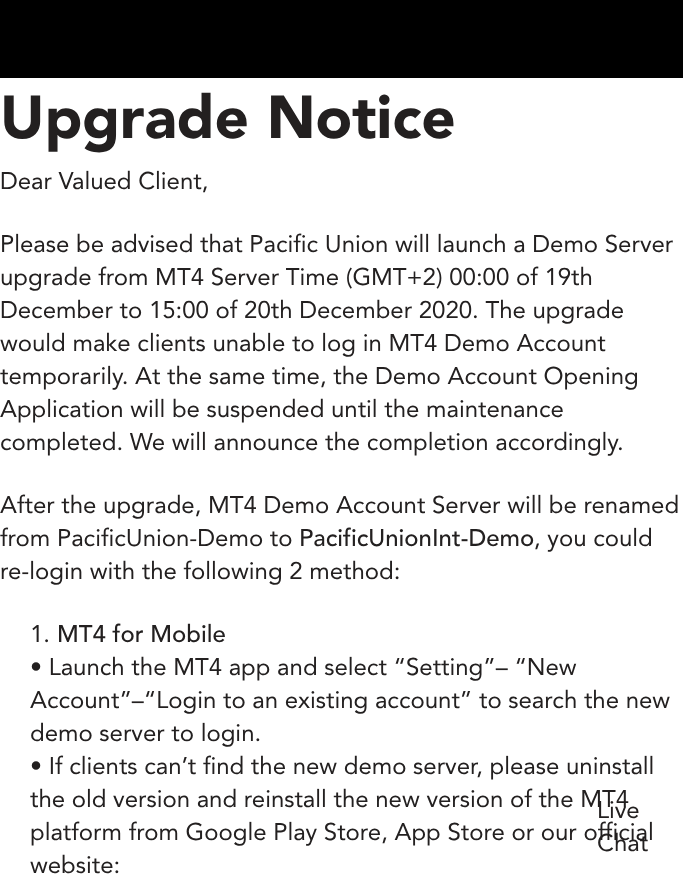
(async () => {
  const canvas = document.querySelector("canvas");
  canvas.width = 683;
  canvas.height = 888;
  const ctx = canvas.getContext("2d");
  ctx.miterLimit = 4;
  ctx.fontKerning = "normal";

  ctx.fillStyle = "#ffffff";
  ctx.fillRect(0, 0, 683, 888);
  ctx.fillStyle = "#000000";
  ctx.fillRect(0, 0, 683, 78);
  ctx.font = "900 60px Avenir";
  ctx.fillStyle = "#232020";
  ctx.fillText("Upgrade Notice", 0, 138);
  ctx.font = "24px Avenir";
  for (const [text, x, y] of [
    ["Dear Valued Client,", 0, 189],
    ["Please be advised that Pacific Union will launch a Demo Server", 0, 252],
    ["upgrade from MT4 Server Time (GMT+2) 00:00 of 19th", 0, 285],
    ["December to 15:00 of 20th December 2020. The upgrade", 0, 318],
    ["would make clients unable to log in MT4 Demo Account", 0, 351],
    ["temporarily. At the same time, the Demo Account Opening", 0, 384],
    ["Application will be suspended until the maintenance", 0, 417],
    ["completed. We will announce the completion accordingly.", 0, 450],
    ["After the upgrade, MT4 Demo Account Server will be renamed", 0, 513],
    ["from PacificUnion-Demo to", 0, 546],
  ]) {
    ctx.fillText(text, x, y);
  }
  ctx.font = "500 24px 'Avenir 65'";
  ctx.fillText("PacificUnionInt-Demo", 299, 546);
  ctx.font = "24px Avenir";
  for (const [text, x, y] of [
    [", you could", 534, 546],
    ["re-login with the following 2 method:", 0, 579],
    ["1.", 30, 642],
  ]) {
    ctx.fillText(text, x, y);
  }
  ctx.font = "500 24px 'Avenir 65'";
  ctx.fillText("MT4 for Mobile", 57, 642);
  ctx.font = "24px Avenir";
  for (const [text, x, y] of [
    ["• Launch the MT4 app and select “Setting”– “New", 30, 675],
    ["Account”–“Login to an existing account” to search the new", 30, 708],
    ["demo server to login.", 30, 741],
    ["• If clients can’t find the new demo server, please uninstall", 30, 774],
    ["the old version and reinstall the new version of the MT4", 30, 807],
    ["platform from Google Play Store, App Store or our official", 30, 840],
    ["website:", 30, 873],
    ["Live", 597, 818],
    ["Chat", 597, 851],
  ]) {
    ctx.fillText(text, x, y);
  }
})();
